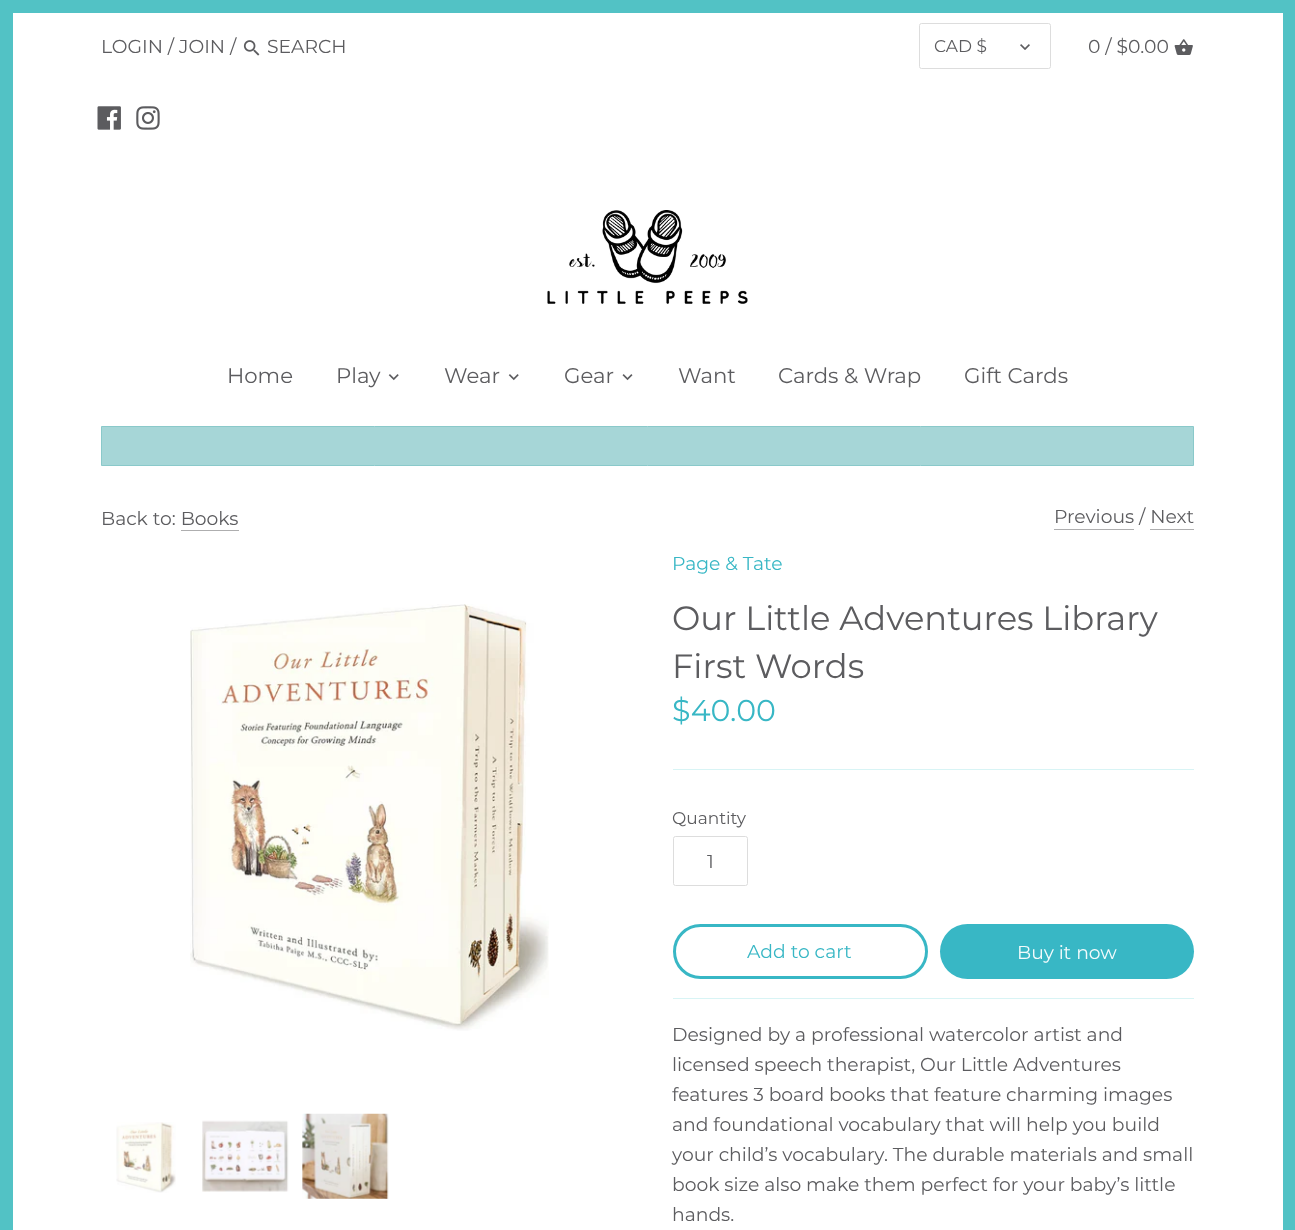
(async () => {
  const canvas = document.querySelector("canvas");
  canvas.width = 1295;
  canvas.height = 1230;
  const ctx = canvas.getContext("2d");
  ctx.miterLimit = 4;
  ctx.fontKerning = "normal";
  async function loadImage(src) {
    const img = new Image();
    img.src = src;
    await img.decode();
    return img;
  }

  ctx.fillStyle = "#ffffff";
  ctx.fillRect(0, 0, 1295, 1230);
  ctx.strokeStyle = "#52c2c5";
  ctx.lineWidth = 13;
  ctx.strokeRect(6.5, 6.5, 1282, 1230);
  ctx.fillRect(1282, 13, 1, 1217);
  ctx.drawImage(await loadImage("img/1.png"), 243, 40, 17, 16);
  ctx.beginPath();
  ctx.roundRect(919.5, 23.5, 131, 45, 2);
  ctx.strokeStyle = "#dddddd";
  ctx.lineWidth = 1;
  ctx.stroke();
  ctx.drawImage(await loadImage("img/2.png"), 1020, 44, 10, 6);
  ctx.drawImage(await loadImage("img/3.png"), 1174, 39, 19, 16);
  ctx.drawImage(await loadImage("img/4.png"), 97, 106, 24, 24);
  ctx.drawImage(await loadImage("img/5.png"), 136, 106, 24, 24);
  ctx.drawImage(await loadImage("img/6.png"), 547, 210, 201, 94);
  ctx.drawImage(await loadImage("img/7.png"), 388, 374, 11, 7);
  ctx.drawImage(await loadImage("img/7.png"), 508, 374, 11, 7);
  ctx.drawImage(await loadImage("img/8.png"), 622, 374, 11, 7);
  ctx.fillStyle = "#a6d6d7";
  ctx.beginPath();
  ctx.rect(101.5, 426.5, 1092, 39);
  ctx.fill();
  ctx.strokeStyle = "#8ac9ca";
  ctx.stroke();
  for (const [x, y, w, h, color] of [
    [181, 530, 58, 1, "#aeaeaf"],
    [1054, 529, 80, 1, "#aeaeaf"],
    [1150, 529, 44, 1, "#aeaeaf"],
  ]) {
    ctx.fillStyle = color;
    ctx.fillRect(x, y, w, h);
  }
  ctx.drawImage(await loadImage("img/9.png"), 190, 604, 359, 427);
  ctx.drawImage(await loadImage("img/10.png"), 116, 1122, 60, 71);
  ctx.drawImage(await loadImage("img/11.png"), 202, 1120, 87, 72);
  ctx.drawImage(await loadImage("img/12.png"), 302, 1113, 87, 86);
  ctx.fillStyle = "#d8f4f5";
  ctx.fillRect(673, 769, 521, 1);
  ctx.fillRect(673, 998, 521, 1);
  ctx.beginPath();
  ctx.roundRect(673.5, 836.5, 74, 49, 2);
  ctx.strokeStyle = "#dddddd";
  ctx.stroke();
  ctx.beginPath();
  ctx.roundRect(674.5, 925.5, 252, 52, 26);
  ctx.strokeStyle = "#38b7c5";
  ctx.lineWidth = 3;
  ctx.stroke();
  ctx.fillStyle = "#38b7c5";
  ctx.beginPath();
  ctx.roundRect(940, 924, 254, 55, 27.5);
  ctx.fill();
  ctx.font = "18.75px Montserrat";
  ctx.fillStyle = "#5c5c5f";
  ctx.fillText("LOGIN / JOIN /", 101, 53);
  ctx.fillText("SEARCH", 267, 53);
  ctx.font = "17px Montserrat";
  ctx.fillText("CAD $", 934, 52);
  ctx.font = "18.75px Montserrat";
  ctx.fillText("0 / $0.00", 1088, 53);
  ctx.font = "21.25px Montserrat";
  for (const [text, x, y] of [
    ["Home", 227, 383],
    ["Play", 336, 383],
    ["Wear", 444, 383],
    ["Gear", 564, 383],
    ["Want", 678, 383],
    ["Cards & Wrap", 778, 383],
    ["Gift Cards", 964, 383],
  ]) {
    ctx.fillText(text, x, y);
  }
  ctx.font = "18.75px Montserrat";
  ctx.fillText("Back to: Books", 101, 525);
  ctx.fillText("Previous / Next", 1054, 523);
  ctx.fillStyle = "#38b7c5";
  ctx.fillText("Page & Tate", 672, 570);
  ctx.font = "33.75px Montserrat";
  ctx.fillStyle = "#5c5c5f";
  ctx.fillText("Our Little Adventures Library", 672, 630);
  ctx.fillText("First Words", 672, 678);
  ctx.font = "30px Montserrat";
  ctx.fillStyle = "#38b7c5";
  ctx.fillText("$40.00", 672, 721);
  ctx.font = "17px Montserrat";
  ctx.fillStyle = "#5c5c5f";
  ctx.fillText("Quantity", 672, 824);
  ctx.font = "18.75px Montserrat";
  ctx.fillText("1", 707, 868);
  ctx.fillStyle = "#38b7c5";
  ctx.fillText("Add to cart", 747, 958);
  ctx.fillStyle = "#f4fbfc";
  ctx.fillText("Buy it now", 1017, 959);
  ctx.fillStyle = "#5c5c5f";
  for (const [text, x, y] of [
    ["Designed by a professional watercolor artist and", 672, 1041],
    ["licensed speech therapist, Our Little Adventures", 672, 1071],
    ["features 3 board books that feature charming images", 672, 1101],
    ["and foundational vocabulary that will help you build", 672, 1131],
    ["your child’s vocabulary. The durable materials and small", 672, 1161],
    ["book size also make them perfect for your baby’s little", 672, 1191],
    ["hands.", 672, 1221],
  ]) {
    ctx.fillText(text, x, y);
  }
})();
